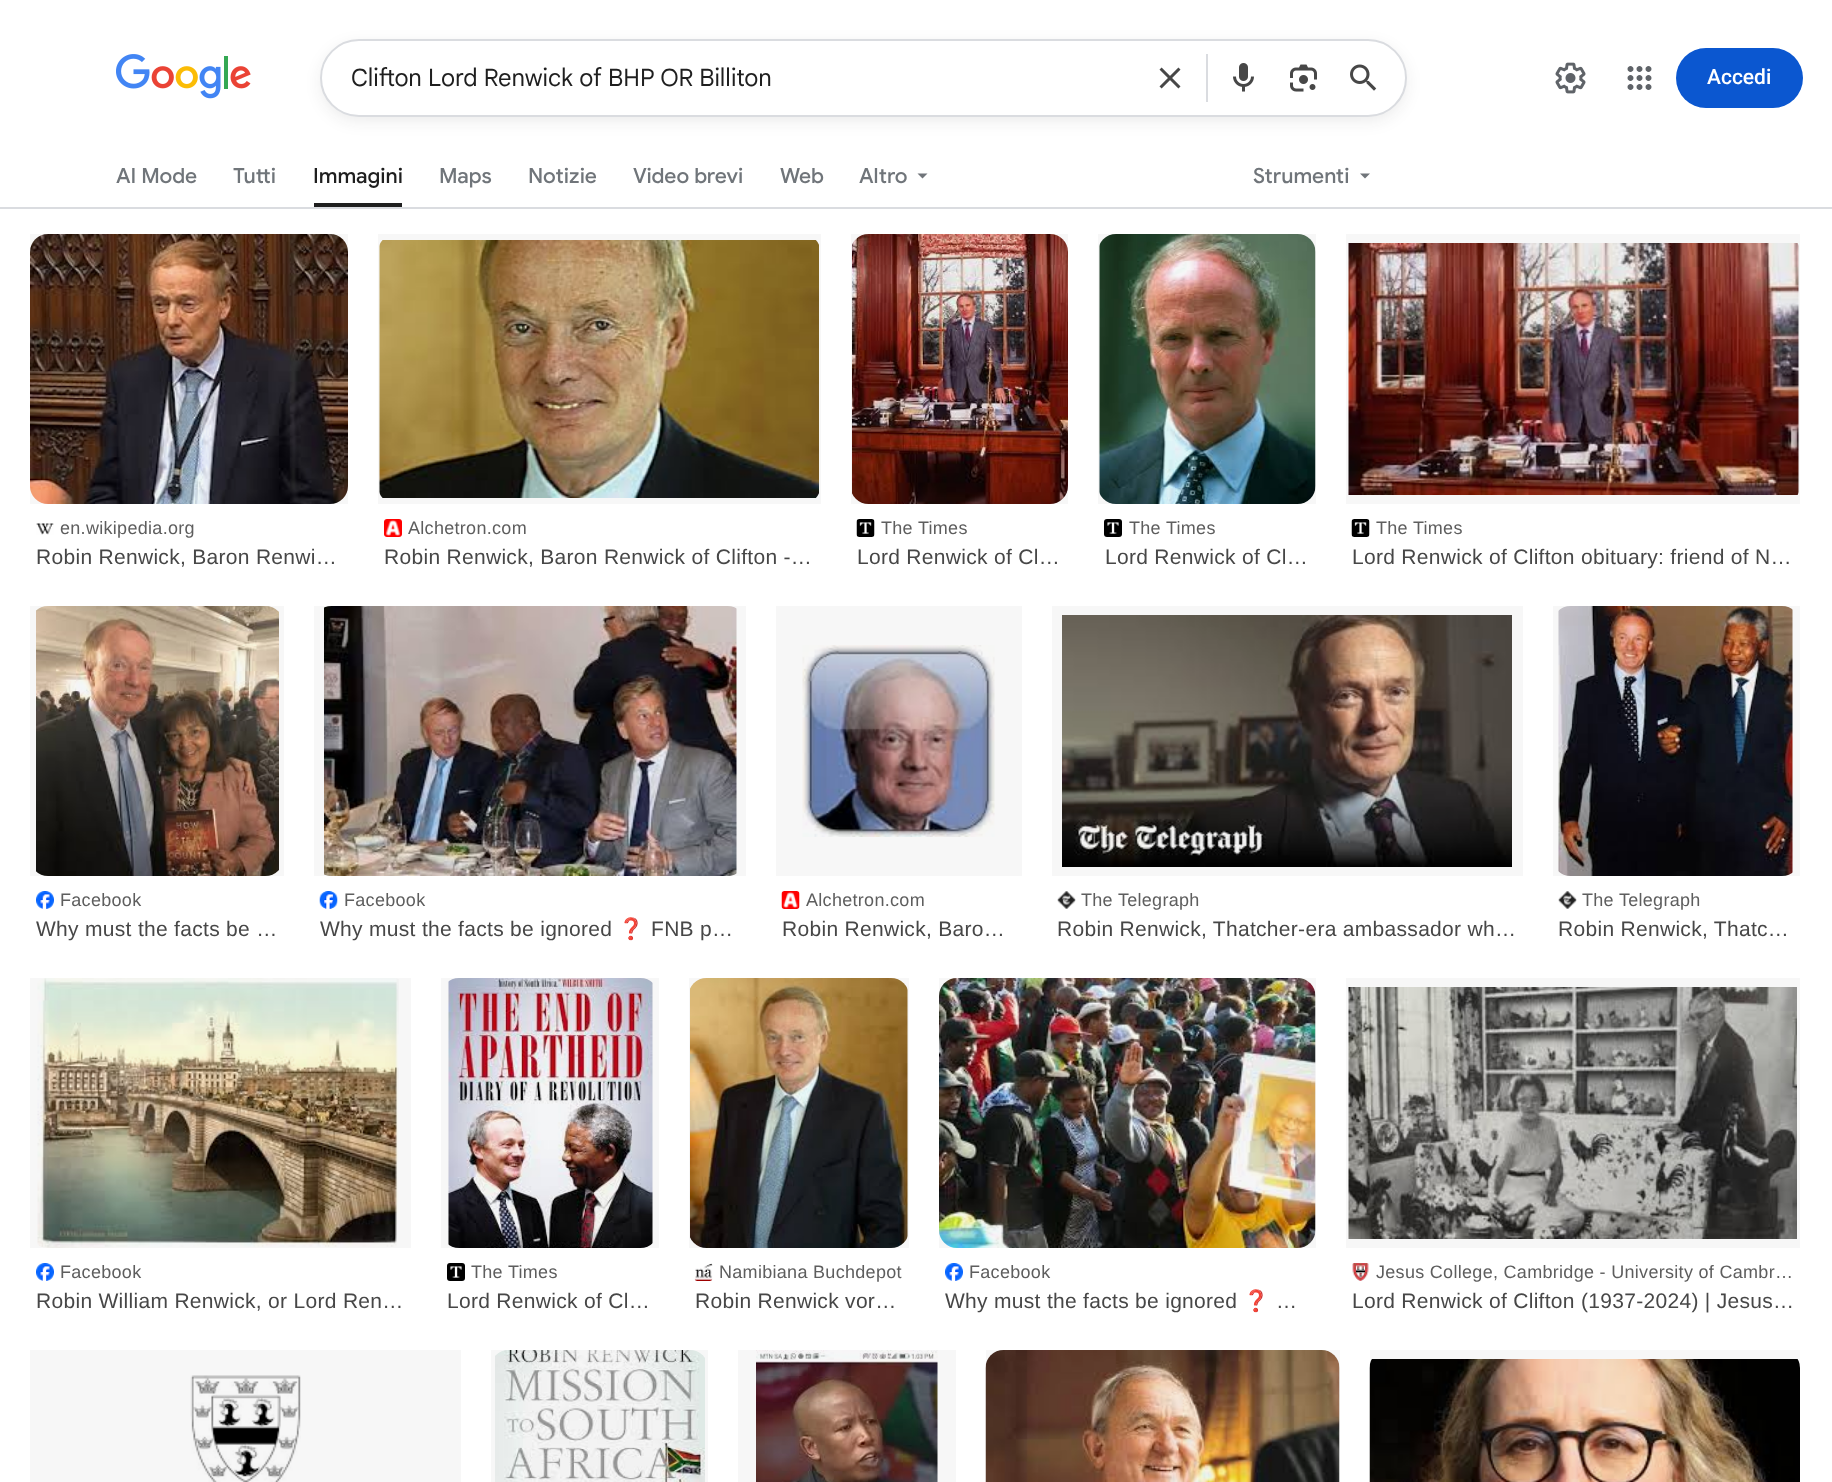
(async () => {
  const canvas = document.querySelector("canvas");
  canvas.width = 1832;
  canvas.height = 1482;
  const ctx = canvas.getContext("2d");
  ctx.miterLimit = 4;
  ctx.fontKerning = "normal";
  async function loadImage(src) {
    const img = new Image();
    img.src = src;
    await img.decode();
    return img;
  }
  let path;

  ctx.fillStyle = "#ffffff";
  ctx.fillRect(0, 0, 1832, 1482);
  ctx.drawImage(await loadImage("img/1.png"), 116, 54, 135, 45);
  ctx.fillStyle = "rgba(31, 31, 31, 0.08)";
  ctx.filter = "blur(7.5px)";
  ctx.beginPath();
  ctx.roundRect(320, 44, 1087, 78, 39);
  ctx.fill();
  ctx.filter = "none";
  ctx.fillStyle = "#ffffff";
  ctx.beginPath();
  ctx.roundRect(321, 40, 1085, 76, 38);
  ctx.fill();
  ctx.strokeStyle = "#dadce0";
  ctx.lineWidth = 2;
  ctx.stroke();
  ctx.drawImage(await loadImage("img/2.png"), 1159, 67, 22, 22);
  ctx.fillStyle = "#dadce0";
  ctx.fillRect(1206, 54, 2, 48);
  ctx.drawImage(await loadImage("img/3.png"), 1233, 63, 21, 29);
  ctx.drawImage(await loadImage("img/4.png"), 1290, 64, 27, 28);
  ctx.drawImage(await loadImage("img/5.png"), 1350, 64, 27, 27);
  ctx.drawImage(await loadImage("img/6.png"), 1555, 62, 31, 32);
  ctx.drawImage(await loadImage("img/7.png"), 1627, 66, 25, 24);
  ctx.fillStyle = "#0b57d0";
  ctx.beginPath();
  ctx.roundRect(1676, 48, 127, 60, 30);
  ctx.fill();
  ctx.fillStyle = "#1f1f1f";
  ctx.fillRect(314, 203, 88, 4);
  ctx.fillStyle = "#70757a";
  path = new Path2D("M917.5 173.5L922.5 178.5L927.5 173.5Z");
  ctx.fill(path);
  path = new Path2D("M1360 173.5L1365 178.5L1370 173.5Z");
  ctx.fill(path);
  ctx.fillStyle = "#dadce0";
  ctx.fillRect(0, 207, 1832, 2);
  ctx.drawImage(await loadImage("img/8.png"), 30, 234, 318, 270);
  ctx.fillStyle = "rgba(0, 0, 0, 0.03)";
  ctx.fillRect(30, 234, 318, 270);
  ctx.drawImage(await loadImage("img/9.png"), 36, 523, 18, 12);
  ctx.drawImage(await loadImage("img/10.png"), 379, 240, 440, 258);
  ctx.fillRect(378, 234, 443, 270);
  ctx.drawImage(await loadImage("img/11.png"), 384, 519, 18, 18);
  ctx.drawImage(await loadImage("img/12.png"), 852, 234, 216, 270);
  ctx.fillRect(851, 234, 217, 270);
  ctx.drawImage(await loadImage("img/13.png"), 856, 519, 19, 18);
  ctx.drawImage(await loadImage("img/14.png"), 1099, 234, 217, 270);
  ctx.fillRect(1098, 234, 218, 270);
  ctx.drawImage(await loadImage("img/15.png"), 1104, 519, 18, 18);
  ctx.drawImage(await loadImage("img/16.png"), 1348, 243, 451, 252);
  ctx.fillRect(1346, 234, 454, 270);
  ctx.drawImage(await loadImage("img/13.png"), 1351, 519, 19, 18);
  ctx.drawImage(await loadImage("img/17.png"), 36, 606, 243, 270);
  ctx.fillRect(30, 606, 254, 270);
  ctx.drawImage(await loadImage("img/18.png"), 36, 891, 18, 18);
  ctx.drawImage(await loadImage("img/19.png"), 324, 606, 413, 270);
  ctx.fillRect(314, 606, 432, 270);
  ctx.drawImage(await loadImage("img/20.png"), 319, 891, 19, 18);
  ctx.drawImage(await loadImage("img/21.png"), 802, 645, 193, 192);
  ctx.fillRect(776, 606, 246, 270);
  ctx.drawImage(await loadImage("img/22.png"), 781, 891, 19, 18);
  ctx.drawImage(await loadImage("img/23.png"), 1062, 615, 450, 252);
  ctx.fillRect(1052, 606, 471, 270);
  ctx.drawImage(await loadImage("img/24.png"), 1057, 891, 19, 18);
  ctx.drawImage(await loadImage("img/25.png"), 1558, 606, 235, 270);
  ctx.fillRect(1553, 606, 247, 270);
  ctx.drawImage(await loadImage("img/24.png"), 1558, 891, 19, 18);
  ctx.drawImage(await loadImage("img/26.png"), 37, 978, 362, 270);
  ctx.fillRect(30, 978, 381, 270);
  ctx.drawImage(await loadImage("img/18.png"), 36, 1263, 18, 18);
  ctx.drawImage(await loadImage("img/27.png"), 448, 978, 205, 270);
  ctx.fillRect(441, 978, 218, 270);
  ctx.drawImage(await loadImage("img/15.png"), 447, 1263, 18, 18);
  ctx.drawImage(await loadImage("img/28.png"), 690, 978, 218, 270);
  ctx.fillRect(689, 978, 220, 270);
  ctx.drawImage(await loadImage("img/29.png"), 694, 1263, 19, 18);
  ctx.drawImage(await loadImage("img/30.png"), 939, 978, 377, 270);
  ctx.fillRect(939, 978, 377, 270);
  ctx.drawImage(await loadImage("img/31.png"), 945, 1263, 18, 18);
  ctx.drawImage(await loadImage("img/32.png"), 1348, 987, 449, 252);
  ctx.fillRect(1346, 978, 454, 270);
  ctx.drawImage(await loadImage("img/33.png"), 1352, 1263, 17, 18);
  ctx.drawImage(await loadImage("img/34.png"), 190, 1375, 111, 107);
  ctx.fillRect(30, 1350, 431, 132);
  ctx.drawImage(await loadImage("img/35.png"), 495, 1350, 210, 132);
  ctx.fillRect(491, 1350, 217, 132);
  ctx.drawImage(await loadImage("img/36.png"), 756, 1350, 182, 132);
  ctx.fillRect(738, 1350, 218, 132);
  ctx.drawImage(await loadImage("img/37.png"), 985, 1350, 355, 132);
  ctx.fillRect(986, 1350, 354, 132);
  ctx.drawImage(await loadImage("img/38.png"), 1369, 1359, 431, 123);
  ctx.fillRect(1370, 1350, 430, 132);
  ctx.font = "24px Google Sans";
  ctx.fillStyle = "#1f1f1f";
  ctx.fillText("Clifton Lord Renwick of BHP OR Billiton", 351, 86);
  ctx.font = "500 21px Roboto";
  ctx.fillStyle = "#ffffff";
  ctx.fillText("Accedi", 1707, 84);
  ctx.font = "500 21px Google Sans";
  ctx.fillStyle = "#70757a";
  ctx.fillText("AI Mode", 116, 183);
  ctx.fillText("Tutti", 233, 183);
  ctx.fillStyle = "#1f1f1f";
  ctx.fillText("Immagini", 313, 183);
  ctx.fillStyle = "#70757a";
  for (const [text, x, y] of [
    ["Maps", 439, 183],
    ["Notizie", 528, 183],
    ["Video brevi", 633, 183],
    ["Web", 780, 183],
    ["Altro", 859, 183],
    ["Strumenti", 1253, 183],
  ]) {
    ctx.fillText(text, x, y);
  }
  ctx.letterSpacing = "0.3px";
  ctx.font = "18px Liberation Sans";
  ctx.fillStyle = "#5e5e5e";
  ctx.fillText("en.wikipedia.org", 60, 534);
  ctx.font = "21px Liberation Sans";
  ctx.fillStyle = "#474747";
  ctx.fillText("Robin Renwick, Baron Renwi…", 36, 564);
  ctx.font = "18px Liberation Sans";
  ctx.fillStyle = "#5e5e5e";
  ctx.fillText("Alchetron.com", 408, 534);
  ctx.font = "21px Liberation Sans";
  ctx.fillStyle = "#474747";
  ctx.fillText("Robin Renwick, Baron Renwick of Clifton -…", 384, 564);
  ctx.font = "18px Liberation Sans";
  ctx.fillStyle = "#5e5e5e";
  ctx.fillText("The Times", 881, 534);
  ctx.font = "21px Liberation Sans";
  ctx.fillStyle = "#474747";
  ctx.fillText("Lord Renwick of Cl…", 857, 564);
  ctx.font = "18px Liberation Sans";
  ctx.fillStyle = "#5e5e5e";
  ctx.fillText("The Times", 1129, 534);
  ctx.font = "21px Liberation Sans";
  ctx.fillStyle = "#474747";
  ctx.fillText("Lord Renwick of Cl…", 1105, 564);
  ctx.font = "18px Liberation Sans";
  ctx.fillStyle = "#5e5e5e";
  ctx.fillText("The Times", 1376, 534);
  ctx.font = "21px Liberation Sans";
  ctx.fillStyle = "#474747";
  ctx.fillText("Lord Renwick of Clifton obituary: friend of N…", 1352, 564);
  ctx.font = "18px Liberation Sans";
  ctx.fillStyle = "#5e5e5e";
  ctx.fillText("Facebook", 60, 906);
  ctx.font = "21px Liberation Sans";
  ctx.fillStyle = "#474747";
  ctx.fillText("Why must the facts be …", 36, 936);
  ctx.font = "18px Liberation Sans";
  ctx.fillStyle = "#5e5e5e";
  ctx.fillText("Facebook", 344, 906);
  ctx.font = "21px Liberation Sans";
  ctx.fillStyle = "#474747";
  ctx.fillText("Why must the facts be ignored", 320, 936);
  ctx.font = "21px Noto Color Emoji";
  ctx.fillText("❓", 618, 936);
  ctx.font = "21px Liberation Sans";
  ctx.fillText("FNB p…", 651, 936);
  ctx.font = "18px Liberation Sans";
  ctx.fillStyle = "#5e5e5e";
  ctx.fillText("Alchetron.com", 806, 906);
  ctx.font = "21px Liberation Sans";
  ctx.fillStyle = "#474747";
  ctx.fillText("Robin Renwick, Baro…", 782, 936);
  ctx.font = "18px Liberation Sans";
  ctx.fillStyle = "#5e5e5e";
  ctx.fillText("The Telegraph", 1081, 906);
  ctx.font = "21px Liberation Sans";
  ctx.fillStyle = "#474747";
  ctx.fillText("Robin Renwick, Thatcher-era ambassador wh…", 1057, 936);
  ctx.font = "18px Liberation Sans";
  ctx.fillStyle = "#5e5e5e";
  ctx.fillText("The Telegraph", 1582, 906);
  ctx.font = "21px Liberation Sans";
  ctx.fillStyle = "#474747";
  ctx.fillText("Robin Renwick, Thatc…", 1558, 936);
  ctx.font = "18px Liberation Sans";
  ctx.fillStyle = "#5e5e5e";
  ctx.fillText("Facebook", 60, 1278);
  ctx.font = "21px Liberation Sans";
  ctx.fillStyle = "#474747";
  ctx.fillText("Robin William Renwick, or Lord Ren…", 36, 1308);
  ctx.font = "18px Liberation Sans";
  ctx.fillStyle = "#5e5e5e";
  ctx.fillText("The Times", 471, 1278);
  ctx.font = "21px Liberation Sans";
  ctx.fillStyle = "#474747";
  ctx.fillText("Lord Renwick of Cl…", 447, 1308);
  ctx.font = "18px Liberation Sans";
  ctx.fillStyle = "#5e5e5e";
  ctx.fillText("Namibiana Buchdepot", 719, 1278);
  ctx.font = "21px Liberation Sans";
  ctx.fillStyle = "#474747";
  ctx.fillText("Robin Renwick vor…", 695, 1308);
  ctx.font = "18px Liberation Sans";
  ctx.fillStyle = "#5e5e5e";
  ctx.fillText("Facebook", 969, 1278);
  ctx.font = "21px Liberation Sans";
  ctx.fillStyle = "#474747";
  ctx.fillText("Why must the facts be ignored", 945, 1308);
  ctx.font = "21px Noto Color Emoji";
  ctx.fillText("❓", 1243, 1308);
  ctx.font = "21px Liberation Sans";
  ctx.fillText("…", 1276, 1308);
  ctx.font = "18px Liberation Sans";
  ctx.fillStyle = "#5e5e5e";
  ctx.fillText("Jesus College, Cambridge - University of Cambr…", 1376, 1278);
  ctx.font = "21px Liberation Sans";
  ctx.fillStyle = "#474747";
  ctx.fillText("Lord Renwick of Clifton (1937-2024) | Jesus…", 1352, 1308);
})();
